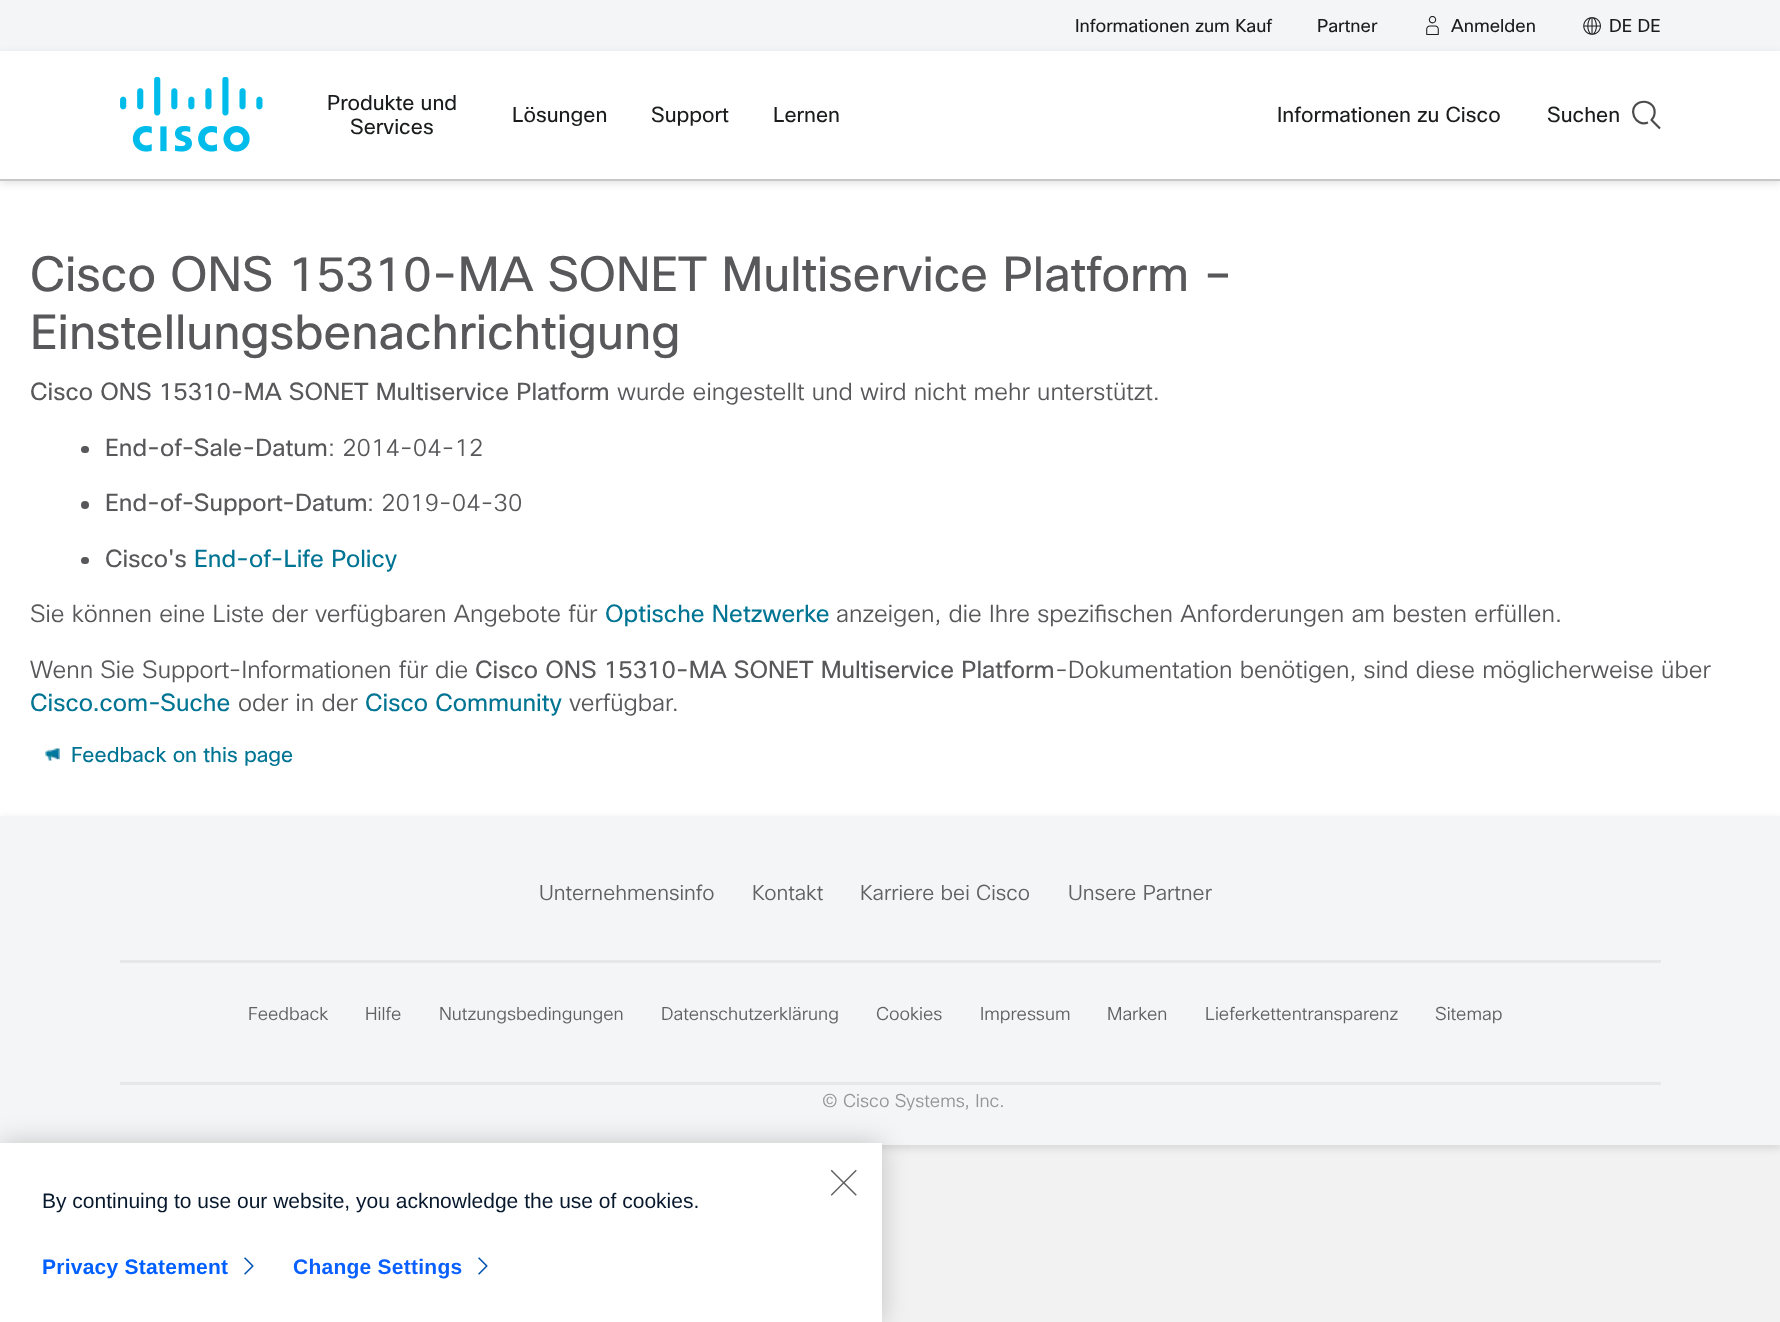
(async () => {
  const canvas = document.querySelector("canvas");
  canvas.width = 1780;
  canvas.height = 1322;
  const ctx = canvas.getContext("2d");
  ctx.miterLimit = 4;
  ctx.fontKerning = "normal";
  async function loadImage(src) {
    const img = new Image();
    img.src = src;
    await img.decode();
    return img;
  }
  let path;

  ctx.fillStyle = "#f2f2f2";
  ctx.fillRect(0, 0, 1780, 1322);
  ctx.fillStyle = "#f4f5f6";
  ctx.fillRect(0, 0, 1780, 51);
  ctx.drawImage(await loadImage("img/1.png"), 1426, 16, 13, 19);
  ctx.drawImage(await loadImage("img/2.png"), 1583, 17, 18, 18);
  ctx.fillStyle = "#ffffff";
  ctx.fillRect(0, 181, 1780, 635);
  ctx.fillStyle = "rgba(0, 0, 0, 0.12)";
  ctx.filter = "blur(4px)";
  ctx.beginPath();
  ctx.rect(0, 54, 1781, 129);
  ctx.fill();
  ctx.filter = "none";
  ctx.fillStyle = "#ffffff";
  ctx.fillRect(0, 51, 1780, 128);
  ctx.fillStyle = "#c7c7c7";
  ctx.fillRect(0, 179, 1780, 2);
  ctx.drawImage(await loadImage("img/3.png"), 120, 77, 143, 75);
  path = new Path2D("M1648 122.5C1635 127.5 1626.5 108 1639.5 102.5C1642.5 101.5 1645.5 101.5 1648 102.5C1651.5 104 1654 107 1654.5 110C1655 114 1654 117.5 1651.5 120L1660 128.5");
  ctx.strokeStyle = "#4d4c4c";
  ctx.lineWidth = 2.2;
  ctx.lineJoin = "round";
  ctx.stroke(path);
  ctx.fillStyle = "#58585b";
  ctx.beginPath();
  ctx.roundRect(81, 446, 8, 7, 3.5);
  ctx.fill();
  ctx.beginPath();
  ctx.arc(85, 505, 4, 0, Math.PI * 2);
  ctx.fill();
  ctx.beginPath();
  ctx.roundRect(81, 557, 8, 7, 3.5);
  ctx.fill();
  ctx.drawImage(await loadImage("img/4.png"), 45, 748, 15, 13);
  ctx.fillStyle = "rgba(0, 0, 0, 0.12)";
  ctx.filter = "blur(4px)";
  ctx.beginPath();
  ctx.rect(0, 819, 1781, 329);
  ctx.fill();
  ctx.filter = "none";
  for (const [x, y, w, h, color] of [
    [0, 816, 1780, 329, "#f4f5f6"],
    [120, 960, 1541, 3, "#e6e7e8"],
    [120, 1082, 1541, 3, "#e6e7e8"],
  ]) {
    ctx.fillStyle = color;
    ctx.fillRect(x, y, w, h);
  }
  ctx.fillStyle = "rgba(0, 0, 0, 0.2)";
  ctx.filter = "blur(13.5px)";
  ctx.beginPath();
  ctx.rect(0, 1143, 882, 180);
  ctx.fill();
  ctx.filter = "none";
  ctx.fillStyle = "#ffffff";
  ctx.fillRect(0, 1143, 882, 179);
  ctx.drawImage(await loadImage("img/5.png"), 830, 1169, 27, 27);
  ctx.drawImage(await loadImage("img/6.png"), 244, 1257, 10, 18);
  ctx.drawImage(await loadImage("img/6.png"), 478, 1257, 10, 18);
  ctx.font = "18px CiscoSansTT";
  ctx.fillStyle = "#1b1c1d";
  for (const [text, x, y] of [
    ["Informationen zum Kauf", 1075, 32],
    ["Partner", 1317, 32],
    ["Anmelden", 1451, 32],
    ["DE DE", 1609, 32],
  ]) {
    ctx.fillText(text, x, y);
  }
  ctx.font = "21px CiscoSansTT";
  for (const [text, x, y] of [
    ["Produkte und", 327, 110],
    ["Services", 350, 134],
    ["Lösungen", 512, 122],
    ["Support", 651, 122],
    ["Lernen", 773, 122],
    ["Informationen zu Cisco", 1277, 122],
    ["Suchen", 1547, 122],
  ]) {
    ctx.fillText(text, x, y);
  }
  ctx.font = "48px CiscoSansTT";
  ctx.fillStyle = "#58585b";
  ctx.fillText("Cisco ONS 15310-MA SONET Multiservice Platform –", 30, 291);
  ctx.fillText("Einstellungsbenachrichtigung", 30, 349);
  ctx.font = "24px CiscoSansTT";
  ctx.fillText("Cisco ONS 15310-MA SONET Multiservice Platform", 30, 400);
  ctx.font = "300 24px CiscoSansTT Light";
  ctx.fillText("wurde eingestellt und wird nicht mehr unterstützt.", 617, 400);
  ctx.font = "24px CiscoSansTT";
  ctx.fillText("End-of-Sale-Datum", 105, 456);
  ctx.font = "300 24px CiscoSansTT Light";
  ctx.fillText(": 2014-04-12", 328, 456);
  ctx.font = "24px CiscoSansTT";
  ctx.fillText("End-of-Support-Datum", 105, 511);
  ctx.font = "300 24px CiscoSansTT Light";
  ctx.fillText(": 2019-04-30", 367, 511);
  ctx.font = "24px CiscoSansTT";
  ctx.fillText("Cisco's", 105, 567);
  ctx.fillStyle = "#007493";
  ctx.fillText("End-of-Life Policy", 194, 567);
  ctx.font = "300 24px CiscoSansTT Light";
  ctx.fillStyle = "#58585b";
  ctx.fillText("Sie können eine Liste der verfügbaren Angebote für", 30, 622);
  ctx.font = "24px CiscoSansTT";
  ctx.fillStyle = "#007493";
  ctx.fillText("Optische Netzwerke", 605, 622);
  ctx.font = "300 24px CiscoSansTT Light";
  ctx.fillStyle = "#58585b";
  ctx.fillText("anzeigen, die Ihre spezifischen Anforderungen am besten erfüllen.", 836, 622);
  ctx.fillText("Wenn Sie Support-Informationen für die", 30, 678);
  ctx.font = "24px CiscoSansTT";
  ctx.fillText("Cisco ONS 15310-MA SONET Multiservice Platform", 475, 678);
  ctx.font = "300 24px CiscoSansTT Light";
  ctx.fillText("-Dokumentation benötigen, sind diese möglicherweise über", 1055, 678);
  ctx.font = "24px CiscoSansTT";
  ctx.fillStyle = "#007493";
  ctx.fillText("Cisco.com-Suche", 30, 711);
  ctx.font = "300 24px CiscoSansTT Light";
  ctx.fillStyle = "#58585b";
  ctx.fillText("oder in der", 238, 711);
  ctx.font = "24px CiscoSansTT";
  ctx.fillStyle = "#007493";
  ctx.fillText("Cisco Community", 365, 711);
  ctx.font = "300 24px CiscoSansTT Light";
  ctx.fillStyle = "#58585b";
  ctx.fillText("verfügbar.", 569, 711);
  ctx.font = "21px CiscoSansTT";
  ctx.fillStyle = "#007493";
  ctx.fillText("Feedback on this page", 71, 762);
  ctx.font = "300 21px CiscoSansTT Light";
  ctx.fillStyle = "#606162";
  for (const [text, x, y] of [
    ["Unternehmensinfo", 539, 900],
    ["Kontakt", 752, 900],
    ["Karriere bei Cisco", 860, 900],
    ["Unsere Partner", 1068, 900],
  ]) {
    ctx.fillText(text, x, y);
  }
  ctx.font = "300 18px CiscoSansTT Light";
  for (const [text, x, y] of [
    ["Feedback", 248, 1020],
    ["Hilfe", 365, 1020],
    ["Nutzungsbedingungen", 439, 1020],
    ["Datenschutzerklärung", 661, 1020],
    ["Cookies", 876, 1020],
    ["Impressum", 980, 1020],
    ["Marken", 1107, 1020],
    ["Lieferkettentransparenz", 1205, 1020],
    ["Sitemap", 1435, 1020],
  ]) {
    ctx.fillText(text, x, y);
  }
  ctx.fillStyle = "#939595";
  ctx.fillText("© Cisco Systems, Inc.", 822, 1107);
  ctx.font = "21px Liberation Sans";
  ctx.fillStyle = "#07182d";
  ctx.fillText("By continuing to use our website, you acknowledge the use of cookies.", 42, 1208);
  ctx.letterSpacing = "0.25px";
  ctx.font = "bold 21px Liberation Sans";
  ctx.fillStyle = "#0060ff";
  ctx.fillText("Privacy Statement", 42, 1274);
  ctx.fillStyle = "#0a60ff";
  ctx.fillText("Change Settings", 293, 1274);
})();
